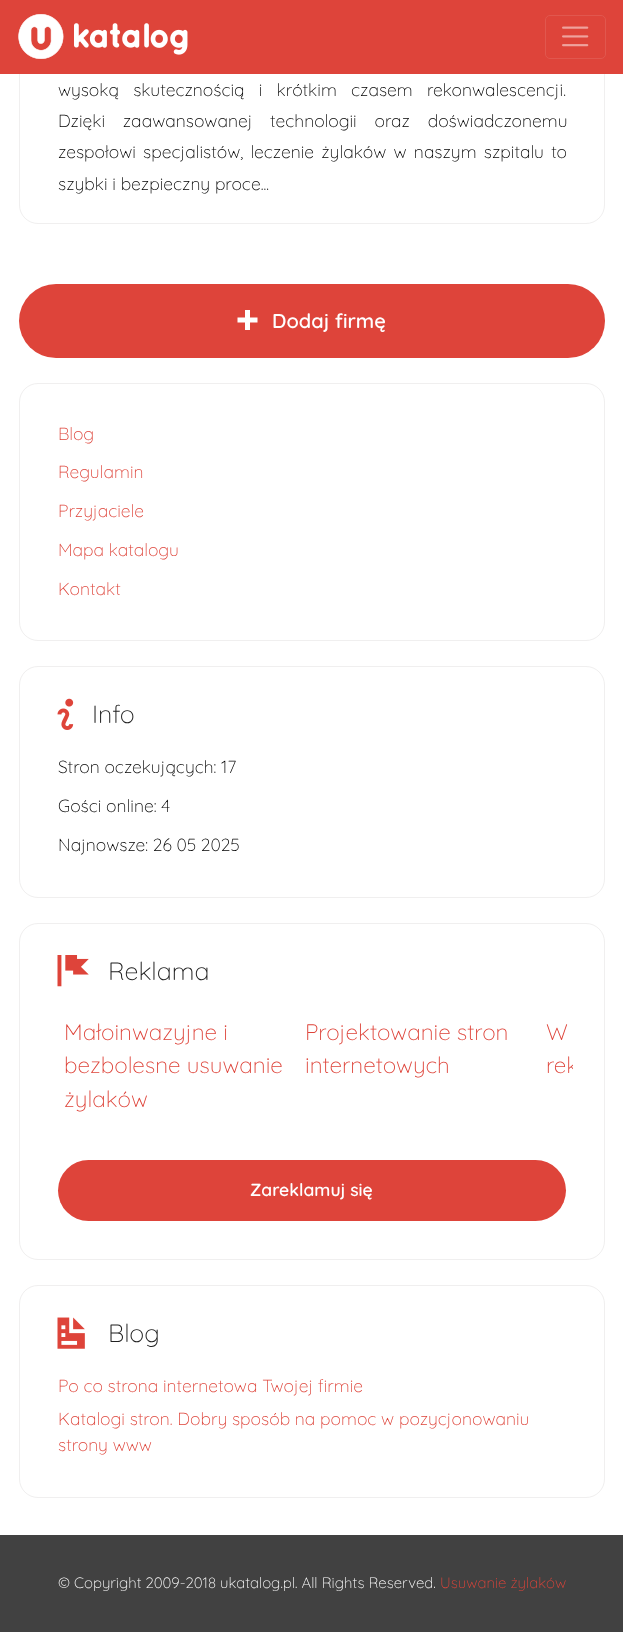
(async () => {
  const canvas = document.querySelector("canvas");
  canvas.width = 623;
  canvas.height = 1632;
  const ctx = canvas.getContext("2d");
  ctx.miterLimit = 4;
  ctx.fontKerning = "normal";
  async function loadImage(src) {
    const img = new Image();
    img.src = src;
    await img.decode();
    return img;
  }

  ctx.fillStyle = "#ffffff";
  ctx.fillRect(0, 0, 623, 1632);
  ctx.beginPath();
  ctx.roundRect(19.5, -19.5, 585, 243, 18.5);
  ctx.strokeStyle = "#f0efef";
  ctx.stroke();
  ctx.fillStyle = "#de443a";
  ctx.fillRect(0, 0, 623, 74);
  ctx.drawImage(await loadImage("img/1.png"), 18, 14, 170, 45);
  ctx.beginPath();
  ctx.roundRect(545.5, 15.5, 60, 43, 4.5);
  ctx.strokeStyle = "#e1574e";
  ctx.stroke();
  ctx.drawImage(await loadImage("img/2.png"), 562, 26, 27, 21);
  ctx.beginPath();
  ctx.roundRect(19, 284, 586, 74, 37);
  ctx.fill();
  ctx.drawImage(await loadImage("img/3.png"), 237, 310, 21, 20);
  ctx.beginPath();
  ctx.roundRect(19.5, 383.5, 585, 257, 18.5);
  ctx.strokeStyle = "#f0efef";
  ctx.stroke();
  ctx.beginPath();
  ctx.roundRect(19.5, 666.5, 585, 231, 18.5);
  ctx.stroke();
  ctx.drawImage(await loadImage("img/4.png"), 57, 698, 17, 32);
  ctx.beginPath();
  ctx.roundRect(19.5, 923.5, 585, 336, 18.5);
  ctx.stroke();
  ctx.drawImage(await loadImage("img/5.png"), 57, 955, 32, 32);
  ctx.beginPath();
  ctx.roundRect(58, 1160, 508, 61, 30.5);
  ctx.fill();
  ctx.beginPath();
  ctx.roundRect(19.5, 1285.5, 585, 212, 18.5);
  ctx.stroke();
  ctx.drawImage(await loadImage("img/6.png"), 57, 1317, 28, 32);
  ctx.fillStyle = "#414141";
  ctx.fillRect(0, 1535, 623, 97);
  ctx.wordSpacing = "9.5px";
  ctx.font = "300 17.5px Quicksand";
  ctx.fillStyle = "#000000";
  ctx.fillText("wysoką skutecznością i krótkim czasem rekonwalescencji.", 58, 96);
  ctx.wordSpacing = "13px";
  ctx.fillText("Dzięki zaawansowanej technologii oraz doświadczonemu", 58, 127);
  ctx.wordSpacing = "2.5px";
  ctx.fillText("zespołowi specjalistów, leczenie żylaków w naszym szpitalu to", 58, 158);
  ctx.wordSpacing = "0px";
  ctx.fillText("szybki i bezpieczny proce...", 58, 190);
  ctx.font = "600 20px Quicksand";
  ctx.fillStyle = "#ffffff";
  ctx.fillText("Dodaj firmę", 272, 328);
  ctx.font = "300 17.5px Quicksand";
  ctx.fillStyle = "#de443a";
  for (const [text, x, y] of [
    ["Blog", 58, 440],
    ["Regulamin", 58, 478],
    ["Przyjaciele", 58, 517],
    ["Mapa katalogu", 58, 556],
    ["Kontakt", 58, 595],
  ]) {
    ctx.fillText(text, x, y);
  }
  ctx.font = "300 25px Quicksand";
  ctx.fillStyle = "#212121";
  ctx.fillText("Info", 92, 723);
  ctx.font = "300 17.5px Quicksand";
  ctx.fillStyle = "#000000";
  for (const [text, x, y] of [
    ["Stron oczekujących: 17", 58, 773],
    ["Gości online: 4", 58, 812],
    ["Najnowsze: 26 05 2025", 58, 851],
  ]) {
    ctx.fillText(text, x, y);
  }
  ctx.font = "300 25px Quicksand";
  ctx.fillStyle = "#212121";
  ctx.fillText("Reklama", 108, 980);
  ctx.font = "300 22.5px Quicksand";
  ctx.fillStyle = "#de443a";
  for (const [text, x, y] of [
    ["Małoinwazyjne i", 64, 1040],
    ["bezbolesne usuwanie", 64, 1073],
    ["żylaków", 64, 1107],
    ["Projektowanie stron", 305, 1040],
    ["internetowych", 305, 1073],
    ["W", 546, 1040],
  ]) {
    ctx.fillText(text, x, y);
  }
  ctx.save();
  ctx.beginPath();
  ctx.rect(64, 1003, 509, 120);
  ctx.clip();
  ctx.fillText("rek", 546, 1073);
  ctx.restore();
  ctx.font = "600 17.5px Quicksand";
  ctx.fillStyle = "#ffffff";
  ctx.fillText("Zareklamuj się", 250, 1196);
  ctx.font = "300 25px Quicksand";
  ctx.fillStyle = "#212121";
  ctx.fillText("Blog", 108, 1342);
  ctx.font = "300 17.5px Quicksand";
  ctx.fillStyle = "#de443a";
  for (const [text, x, y] of [
    ["Po co strona internetowa Twojej firmie", 58, 1392],
    ["Katalogi stron. Dobry sposób na pomoc w pozycjonowaniu", 58, 1425],
    ["strony www", 58, 1451],
  ]) {
    ctx.fillText(text, x, y);
  }
  ctx.font = "300 15px Quicksand";
  ctx.fillStyle = "#ffffff";
  ctx.fillText("© Copyright 2009-2018 ukatalog.pl. All Rights Reserved.", 58, 1588);
  ctx.fillStyle = "#de443a";
  ctx.fillText("Usuwanie żylaków", 440, 1588);
})();
